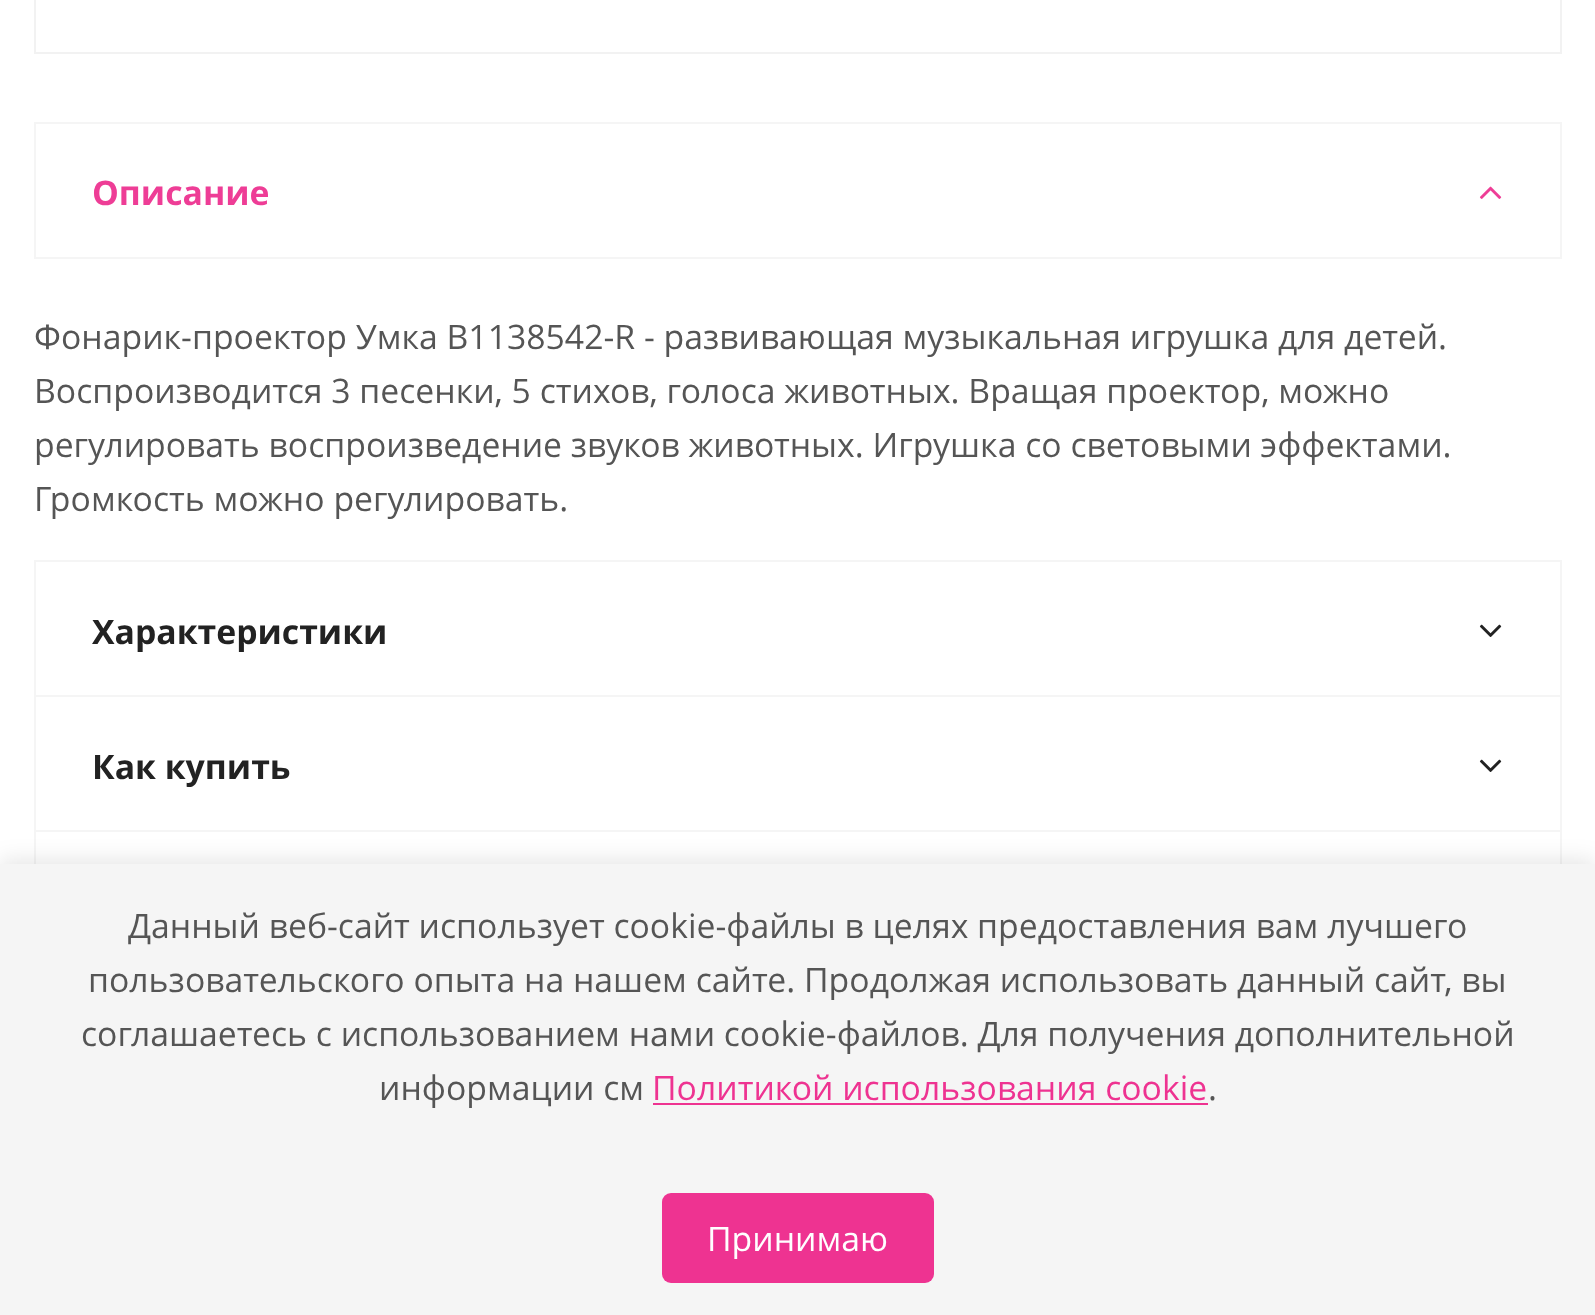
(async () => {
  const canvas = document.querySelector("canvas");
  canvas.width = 1595;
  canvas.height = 1315;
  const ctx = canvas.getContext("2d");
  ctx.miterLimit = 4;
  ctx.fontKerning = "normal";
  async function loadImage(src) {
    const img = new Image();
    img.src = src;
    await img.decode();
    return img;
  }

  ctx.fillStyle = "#ffffff";
  ctx.fillRect(0, 0, 1595, 1315);
  ctx.strokeStyle = "#f2f2f2";
  ctx.lineWidth = 2;
  ctx.strokeRect(35, -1, 1526, 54);
  ctx.strokeStyle = "#f5f5f5";
  ctx.strokeRect(35, 123, 1526, 135);
  ctx.drawImage(await loadImage("img/1.png"), 1479, 186, 23, 13);
  ctx.strokeRect(35, 561, 1526, 136);
  ctx.drawImage(await loadImage("img/2.png"), 1479, 624, 23, 13);
  ctx.fillRect(36, 697, 1524, 1);
  ctx.strokeRect(35, 696, 1526, 136);
  ctx.drawImage(await loadImage("img/2.png"), 1479, 759, 23, 13);
  ctx.fillRect(36, 832, 1524, 1);
  ctx.strokeRect(35, 831, 1526, 136);
  ctx.fillStyle = "rgba(0, 0, 0, 0.1)";
  ctx.filter = "blur(11px)";
  ctx.beginPath();
  ctx.rect(0, 860, 1595, 452);
  ctx.fill();
  ctx.filter = "none";
  ctx.fillStyle = "#f5f5f5";
  ctx.fillRect(0, 864, 1595, 451);
  ctx.fillStyle = "#ee3391";
  ctx.fillRect(653, 1103, 555, 2);
  ctx.beginPath();
  ctx.roundRect(662, 1193, 272, 90, 9);
  ctx.fill();
  ctx.font = "bold 33.75px Open Sans";
  ctx.fillStyle = "#ee3d96";
  ctx.fillText("Описание", 92, 205);
  ctx.font = "33.75px Open Sans";
  ctx.fillStyle = "#555555";
  for (const [text, x, y] of [
    ["Фонарик-проектор Умка B1138542-R - развивающая музыкальная игрушка для детей.", 34, 349],
    ["Воспроизводится 3 песенки, 5 стихов, голоса животных. Вращая проектор, можно", 34, 403],
    ["регулировать воспроизведение звуков животных. Игрушка со световыми эффектами.", 34, 457],
    ["Громкость можно регулировать.", 34, 511],
  ]) {
    ctx.fillText(text, x, y);
  }
  ctx.font = "bold 33.75px Open Sans";
  ctx.fillStyle = "#222222";
  ctx.fillText("Характеристики", 92, 644);
  ctx.fillText("Как купить", 92, 779);
  ctx.font = "33.75px Open Sans";
  ctx.fillStyle = "#555555";
  for (const [text, x, y] of [
    ["Данный веб-сайт использует cookie-файлы в целях предоставления вам лучшего", 128, 938],
    ["пользовательского опыта на нашем сайте. Продолжая использовать данный сайт, вы", 88, 992],
    ["соглашаетесь с использованием нами cookie-файлов. Для получения дополнительной", 81, 1046],
    ["информации см", 379, 1100],
  ]) {
    ctx.fillText(text, x, y);
  }
  ctx.fillStyle = "#ee3391";
  ctx.fillText("Политикой использования cookie", 652, 1100);
  ctx.fillStyle = "#555555";
  ctx.fillText(".", 1208, 1100);
  ctx.fillStyle = "#ffffff";
  ctx.fillText("Принимаю", 707, 1251);
})();
